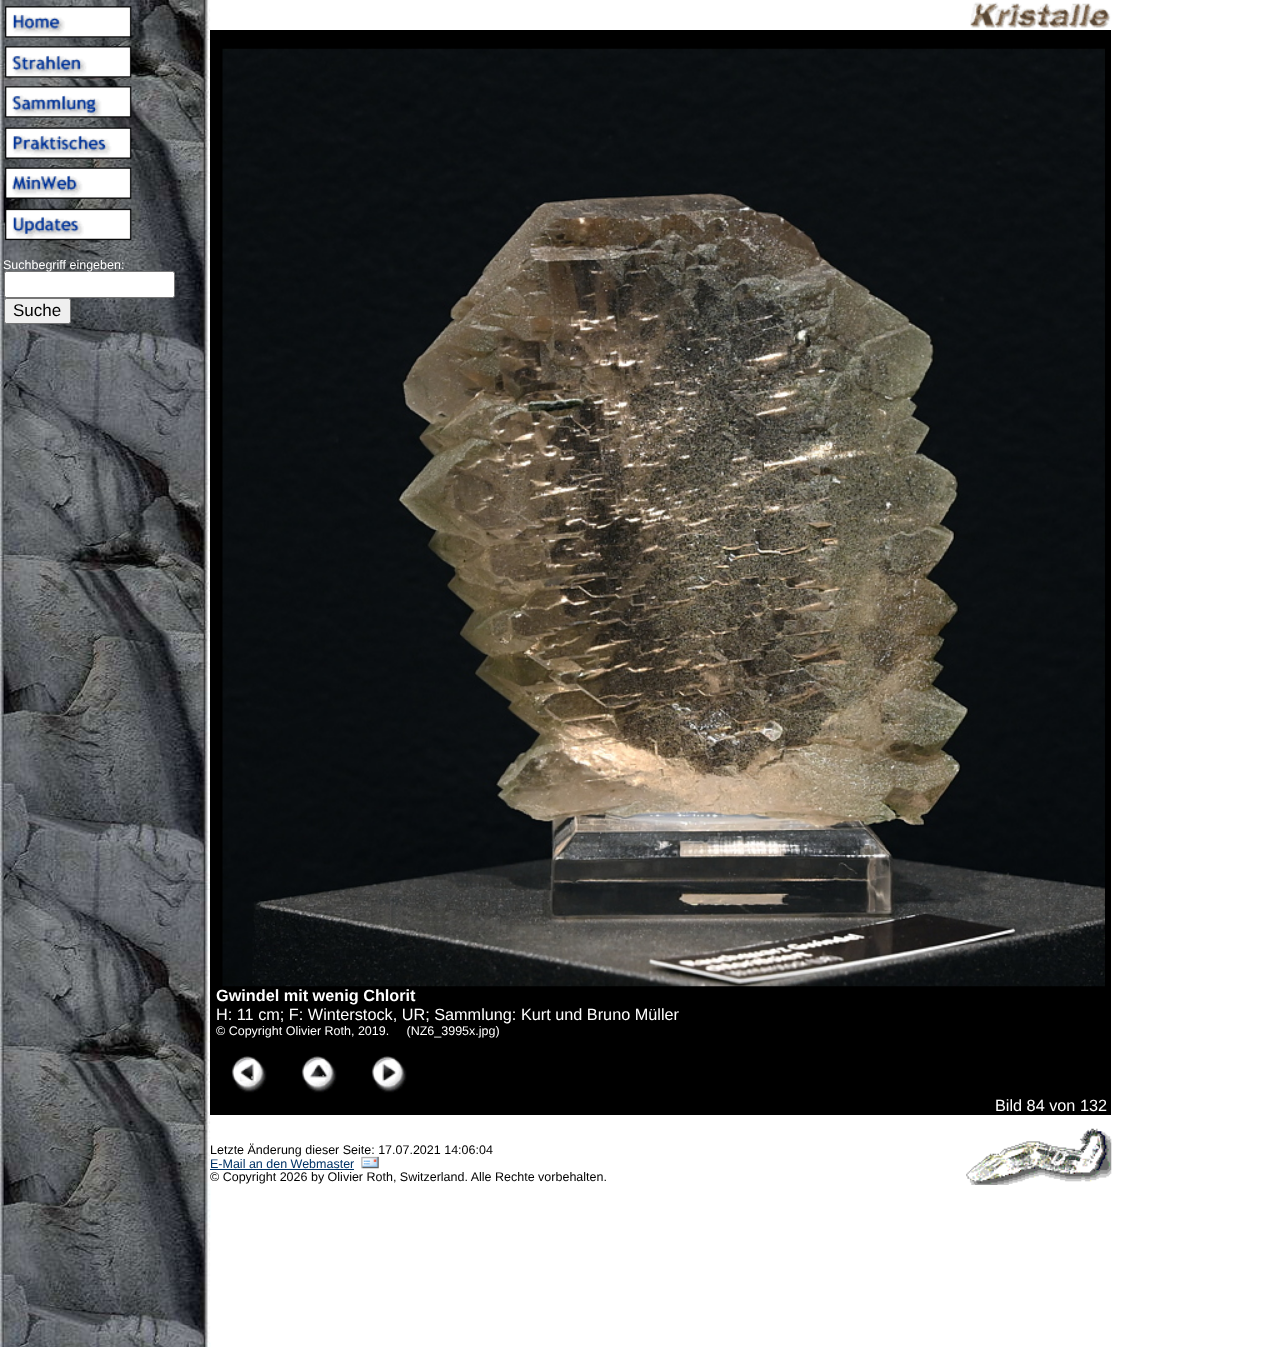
(async () => {
  const canvas = document.querySelector("canvas");
  canvas.width = 1278;
  canvas.height = 1347;
  const ctx = canvas.getContext("2d");
  ctx.miterLimit = 4;
  ctx.fontKerning = "normal";
  async function loadImage(src) {
    const img = new Image();
    img.src = src;
    await img.decode();
    return img;
  }

  ctx.fillStyle = "#ffffff";
  ctx.fillRect(0, 0, 1278, 1347);
  ctx.drawImage(await loadImage("img/1.png"), 0, 0, 211, 1347);
  ctx.drawImage(await loadImage("img/2.png"), 4, 6, 128, 235);
  ctx.beginPath();
  ctx.roundRect(4.5, 271.5, 170, 26, 2);
  ctx.fill();
  ctx.strokeStyle = "#767676";
  ctx.stroke();
  ctx.fillStyle = "#efefef";
  ctx.beginPath();
  ctx.roundRect(4.5, 298.5, 66, 25, 2);
  ctx.fill();
  ctx.stroke();
  ctx.drawImage(await loadImage("img/3.png"), 970, 2, 141, 26);
  ctx.fillStyle = "#000000";
  ctx.fillRect(210, 30, 901, 1085);
  ctx.drawImage(await loadImage("img/4.png"), 222, 48, 883, 939);
  ctx.drawImage(await loadImage("img/5.png"), 231, 1056, 36, 37);
  ctx.drawImage(await loadImage("img/6.png"), 301, 1056, 36, 37);
  ctx.drawImage(await loadImage("img/7.png"), 371, 1056, 36, 37);
  ctx.fillStyle = "#ffffff";
  ctx.fillRect(210, 1183, 1, 2);
  ctx.drawImage(await loadImage("img/8.png"), 966, 1128, 146, 57);
  ctx.fillStyle = "#003366";
  ctx.fillRect(210, 1169, 144, 1);
  ctx.font = "12.5px Liberation Sans";
  ctx.fillStyle = "#ffffff";
  ctx.fillText("Suchbegriff eingeben:", 3, 269);
  ctx.font = "17px Liberation Sans";
  ctx.fillStyle = "#000000";
  ctx.fillText("Suche", 13, 316);
  ctx.font = "bold 16.25px Liberation Sans";
  ctx.fillStyle = "#ffffff";
  ctx.fillText("Gwindel mit wenig Chlorit", 216, 1001);
  ctx.font = "16.25px Liberation Sans";
  ctx.fillText("H: 11 cm; F: Winterstock, UR; Sammlung: Kurt und Bruno Müller", 216, 1020);
  ctx.font = "12.5px Liberation Sans";
  ctx.fillText("© Copyright Olivier Roth, 2019.     (NZ6_3995x.jpg)", 216, 1035);
  ctx.font = "16.25px Liberation Sans";
  ctx.fillText("Bild 84 von 132", 995, 1111);
  ctx.font = "12.5px Liberation Sans";
  ctx.fillStyle = "#000000";
  ctx.fillText("Letzte Änderung dieser Seite: 17.07.2021 14:06:04", 210, 1154);
  ctx.fillStyle = "#003366";
  ctx.fillText("E-Mail an den Webmaster", 210, 1168);
  ctx.drawImage(await loadImage("img/9.png"), 361, 1156, 18, 13);
  ctx.fillStyle = "#000000";
  ctx.fillText("© Copyright 2026 by Olivier Roth, Switzerland. Alle Rechte vorbehalten.", 210, 1181);
})();
